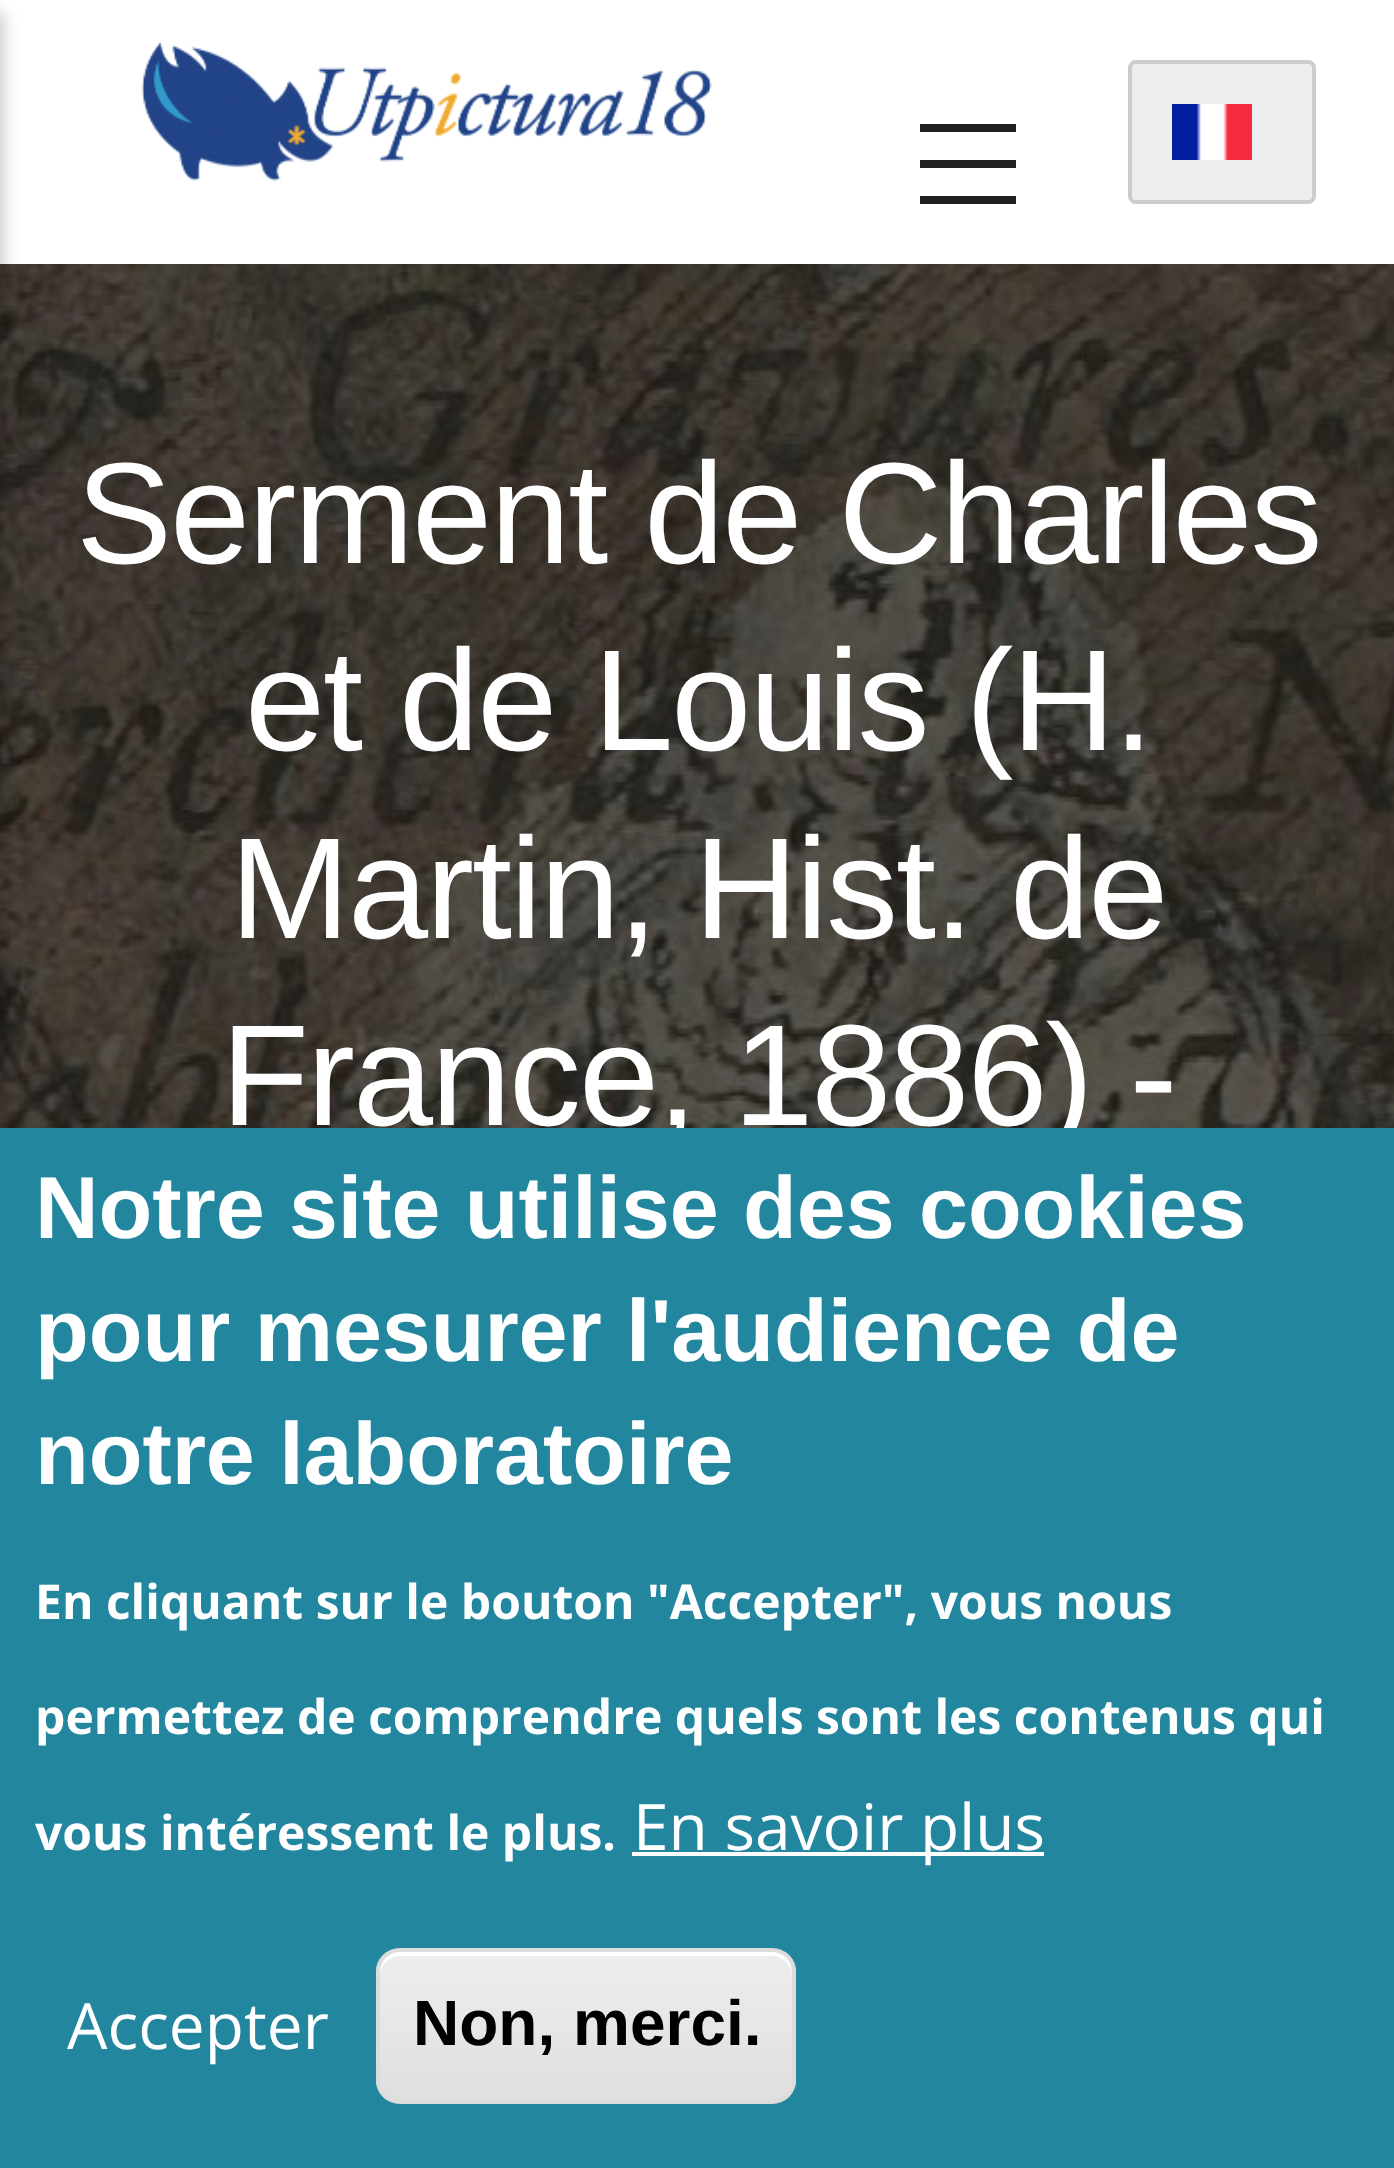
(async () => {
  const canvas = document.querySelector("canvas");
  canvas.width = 1394;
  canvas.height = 2168;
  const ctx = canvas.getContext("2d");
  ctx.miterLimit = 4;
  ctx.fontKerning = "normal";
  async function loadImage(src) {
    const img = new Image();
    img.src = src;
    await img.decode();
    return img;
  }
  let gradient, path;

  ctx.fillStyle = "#ffffff";
  ctx.fillRect(0, 0, 1394, 2168);
  ctx.drawImage(await loadImage("img/3.png"), 0, 264, 1394, 864);
  ctx.fillStyle = "rgba(0, 0, 0, 0.2)";
  ctx.filter = "blur(8px)";
  ctx.beginPath();
  ctx.rect(-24, 12, 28, 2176);
  ctx.fill();
  ctx.filter = "none";
  for (const [x, y, w, h, color] of [
    [920, 124, 96, 8, "#222222"],
    [920, 160, 96, 8, "#222222"],
    [920, 196, 96, 8, "#222222"],
  ]) {
    ctx.fillStyle = color;
    ctx.fillRect(x, y, w, h);
  }
  ctx.drawImage(await loadImage("img/1.png"), 141, 41, 571, 140);
  ctx.fillStyle = "#eeeeee";
  ctx.beginPath();
  ctx.roundRect(1130, 62, 184, 140, 6);
  ctx.fill();
  ctx.strokeStyle = "#cccccc";
  ctx.lineWidth = 4;
  ctx.stroke();
  ctx.drawImage(await loadImage("img/2.png"), 1172, 104, 80, 56);
  ctx.letterSpacing = "-2px";
  ctx.font = "144px Liberation Sans";
  ctx.fillStyle = "#ffffff";
  for (const [text, x, y] of [
    ["Serment de Charles", 76, 563],
    ["et de Louis (H.", 245, 750],
    ["Martin, Hist. de", 230, 938],
    ["France, 1886) -", 221, 1125],
  ]) {
    ctx.fillText(text, x, y);
  }
  ctx.fillStyle = "#22879e";
  ctx.fillRect(0, 1128, 1394, 1040);
  ctx.letterSpacing = "-0.05px";
  ctx.font = "bold 88px Liberation Sans";
  ctx.fillStyle = "#ffffff";
  for (const [text, x, y] of [
    ["Notre site utilise des cookies", 35, 1238],
    ["pour mesurer l'audience de", 35, 1361],
    ["notre laboratoire", 35, 1484],
  ]) {
    ctx.fillText(text, x, y);
  }
  ctx.letterSpacing = "0px";
  ctx.font = "bold 48px Open Sans";
  for (const [text, x, y] of [
    ["En cliquant sur le bouton \"Accepter\", vous nous", 35, 1619],
    ["permettez de comprendre quels sont les contenus qui", 35, 1734],
    ["vous intéressent le plus.", 35, 1850],
  ]) {
    ctx.fillText(text, x, y);
  }
  ctx.fillRect(632, 1852, 412, 4);
  ctx.font = "64px Open Sans";
  ctx.fillText("En savoir plus", 633, 1850);
  ctx.fillText("Accepter", 67, 2049);
  ctx.save();
  ctx.beginPath();
  ctx.roundRect(376, 1948, 420, 156, 24);
  ctx.clip();
  gradient = ctx.createLinearGradient(586, 1952, 586, 2100);
  gradient.addColorStop(0.05, "#ededed");
  gradient.addColorStop(1, "#dfdfdf");
  ctx.fillStyle = gradient;
  ctx.fillRect(376, 1952, 420, 148);
  ctx.restore();
  path = new Path2D("M400 1956H772C783 1956 792 1965 792 1976V1972C792 1961 783 1952 772 1952H400C389 1952 380 1961 380 1972V1976C380 1965 389 1956 400 1956Z");
  ctx.fill(path);
  ctx.beginPath();
  ctx.roundRect(378, 1950, 416, 152, 22);
  ctx.strokeStyle = "#dcdcdc";
  ctx.stroke();
  ctx.font = "bold 64px Liberation Sans";
  ctx.fillStyle = "#000000";
  ctx.fillText("Non, merci.", 413, 2045);
})();
